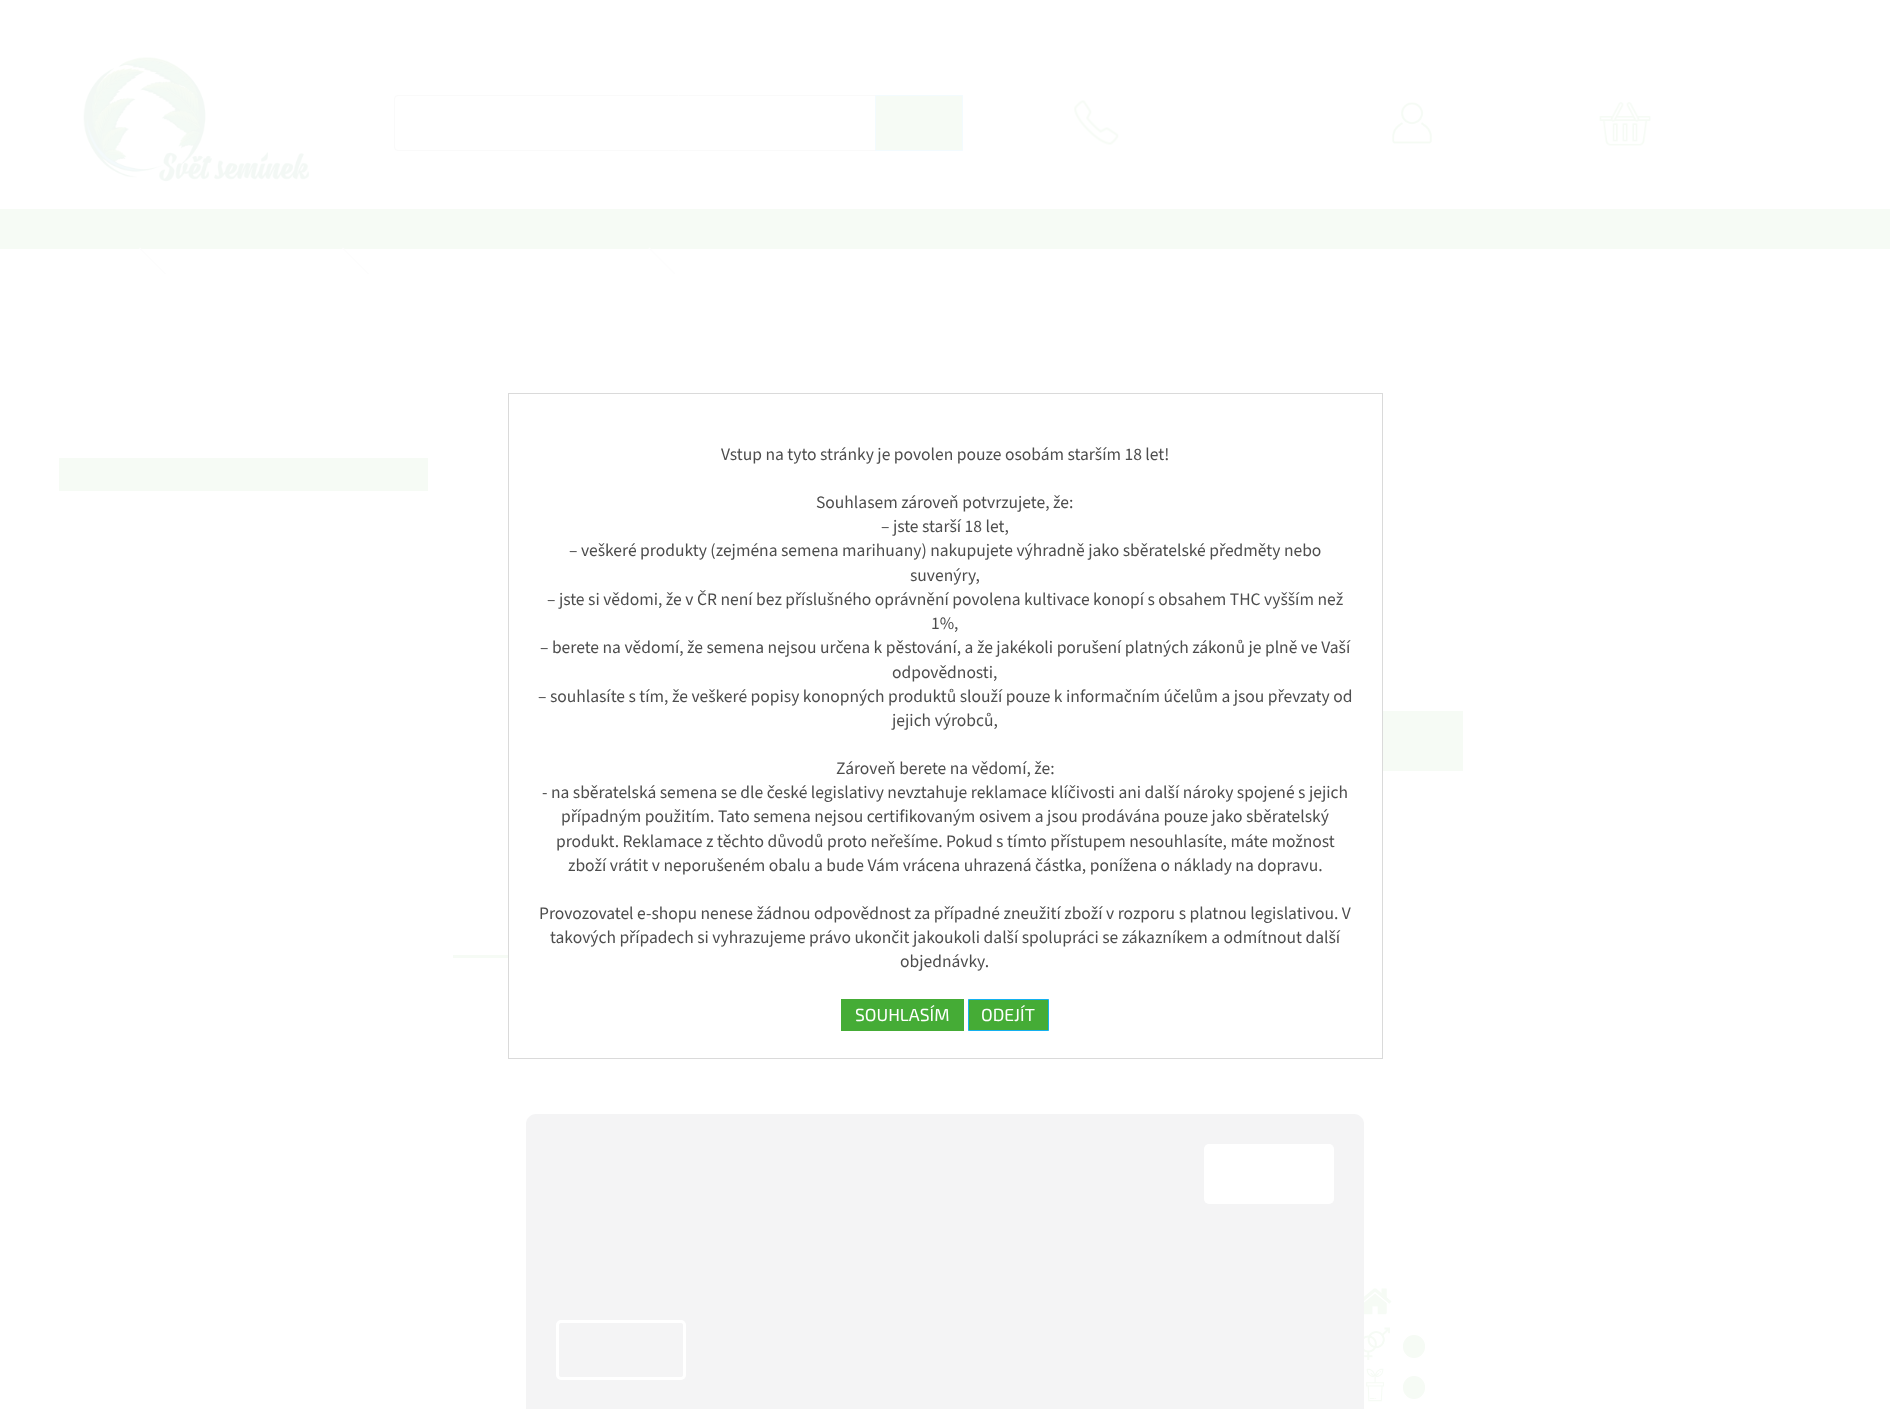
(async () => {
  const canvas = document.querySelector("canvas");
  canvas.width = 1890;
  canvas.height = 1409;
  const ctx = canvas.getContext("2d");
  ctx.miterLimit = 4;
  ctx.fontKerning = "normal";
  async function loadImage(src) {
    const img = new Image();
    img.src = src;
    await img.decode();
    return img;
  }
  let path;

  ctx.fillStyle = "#ffffff";
  ctx.fillRect(0, 0, 1890, 1409);
  ctx.fillStyle = "#f6fbf5";
  ctx.fillRect(0, 209, 1890, 40);
  ctx.drawImage(await loadImage("img/1.png"), 83, 57, 226, 125);
  ctx.beginPath();
  ctx.roundRect(394.5, 95.5, 568, 55, 3.5);
  ctx.strokeStyle = "#fafafa";
  ctx.stroke();
  ctx.beginPath();
  ctx.rect(875.5, 95.5, 87, 55);
  ctx.fill();
  ctx.strokeStyle = "#f3fbfe";
  ctx.stroke();
  ctx.drawImage(await loadImage("img/2.png"), 1074, 100, 45, 45);
  ctx.drawImage(await loadImage("img/3.png"), 1392, 102, 41, 42);
  ctx.drawImage(await loadImage("img/4.png"), 1599, 102, 52, 44);
  ctx.fillStyle = "#fdfdfd";
  path = new Path2D("M139 248.5L140 247.5L166 273.5L165 274.5Z");
  ctx.fill(path);
  path = new Path2D("M342 248.5L343 247.5L369 273.5L368 274.5Z");
  ctx.fill(path);
  path = new Path2D("M648.5 248.5L649.5 247.5L675.5 273.5L674.5 274.5Z");
  ctx.fill(path);
  for (const [x, y, w, h, color] of [
    [59, 458, 369, 33, "#f6fbf5"],
    [1383, 711, 80, 60, "#f6fbf5"],
    [453, 955, 55, 3, "#f6fbf5"],
  ]) {
    ctx.fillStyle = color;
    ctx.fillRect(x, y, w, h);
  }
  ctx.drawImage(await loadImage("img/5.png"), 1364, 1288, 28, 27);
  ctx.drawImage(await loadImage("img/6.png"), 1364, 1327, 26, 33);
  ctx.beginPath();
  ctx.roundRect(1403, 1335, 22, 23, 11);
  ctx.fill();
  ctx.drawImage(await loadImage("img/7.png"), 1366, 1368, 18, 34);
  ctx.beginPath();
  ctx.roundRect(1403, 1376, 22, 23, 11);
  ctx.fill();
  ctx.strokeStyle = "#dadada";
  ctx.strokeRect(508.5, 393.5, 874, 665);
  ctx.fillStyle = "#45ac36";
  ctx.fillRect(841, 999, 123, 32);
  ctx.beginPath();
  ctx.rect(968.5, 999.5, 80, 31);
  ctx.fill();
  ctx.strokeStyle = "#14b1ef";
  ctx.stroke();
  ctx.fillStyle = "#f4f4f5";
  path = new Path2D("M536 1114H1354C1359.5 1114 1364 1118.5 1364 1124V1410H526V1124C526 1118.5 530.5 1114 536 1114Z");
  ctx.fill(path);
  ctx.fillStyle = "#ffffff";
  ctx.beginPath();
  ctx.roundRect(1204, 1144, 130, 60, 5);
  ctx.fill();
  ctx.beginPath();
  ctx.roundRect(557.5, 1321.5, 127, 57, 3.5);
  ctx.strokeStyle = "#ffffff";
  ctx.lineWidth = 3;
  ctx.stroke();
  ctx.font = "17.5px 'Source Sans 3'";
  ctx.fillStyle = "#4d4d4d";
  for (const [text, x, y] of [
    ["Vstup na tyto stránky je povolen pouze osobám starším 18 let!", 721, 460],
    ["Souhlasem zároveň potvrzujete, že:", 816, 508],
    ["– jste starší 18 let,", 881, 532],
    ["– veškeré produkty (zejména semena marihuany) nakupujete výhradně jako sběratelské předměty nebo", 569, 556],
    ["suvenýry,", 910, 581],
    ["– jste si vědomi, že v ČR není bez příslušného oprávnění povolena kultivace konopí s obsahem THC vyšším než", 547, 605],
    ["1%,", 931, 629],
    ["– berete na vědomí, že semena nejsou určena k pěstování, a že jakékoli porušení platných zákonů je plně ve Vaší", 540, 653],
    ["odpovědnosti,", 892, 678],
    ["– souhlasíte s tím, že veškeré popisy konopných produktů slouží pouze k informačním účelům a jsou převzaty od", 538, 702],
    ["jejich výrobců,", 892, 726],
    ["Zároveň berete na vědomí, že:", 836, 774],
    ["- na sběratelská semena se dle české legislativy nevztahuje reklamace klíčivosti ani další nároky spojené s jejich", 542, 798],
    ["případným použitím. Tato semena nejsou certifikovaným osivem a jsou prodávána pouze jako sběratelský", 561, 822],
    ["produkt. Reklamace z těchto důvodů proto neřešíme. Pokud s tímto přístupem nesouhlasíte, máte možnost", 556, 847],
    ["zboží vrátit v neporušeném obalu a bude Vám vrácena uhrazená částka, ponížena o náklady na dopravu.", 568, 871],
    ["Provozovatel e-shopu nenese žádnou odpovědnost za případné zneužití zboží v rozporu s platnou legislativou. V", 539, 919],
    ["takových případech si vyhrazujeme právo ukončit jakoukoli další spolupráci se zákazníkem a odmítnout další", 550, 943],
    ["objednávky.", 900, 967],
  ]) {
    ctx.fillText(text, x, y);
  }
  ctx.font = "17.5px 'Exo 2'";
  ctx.fillStyle = "#ffffff";
  ctx.fillText("SOUHLASÍM", 855, 1021);
  ctx.fillText("ODEJÍT", 981, 1021);
})();
